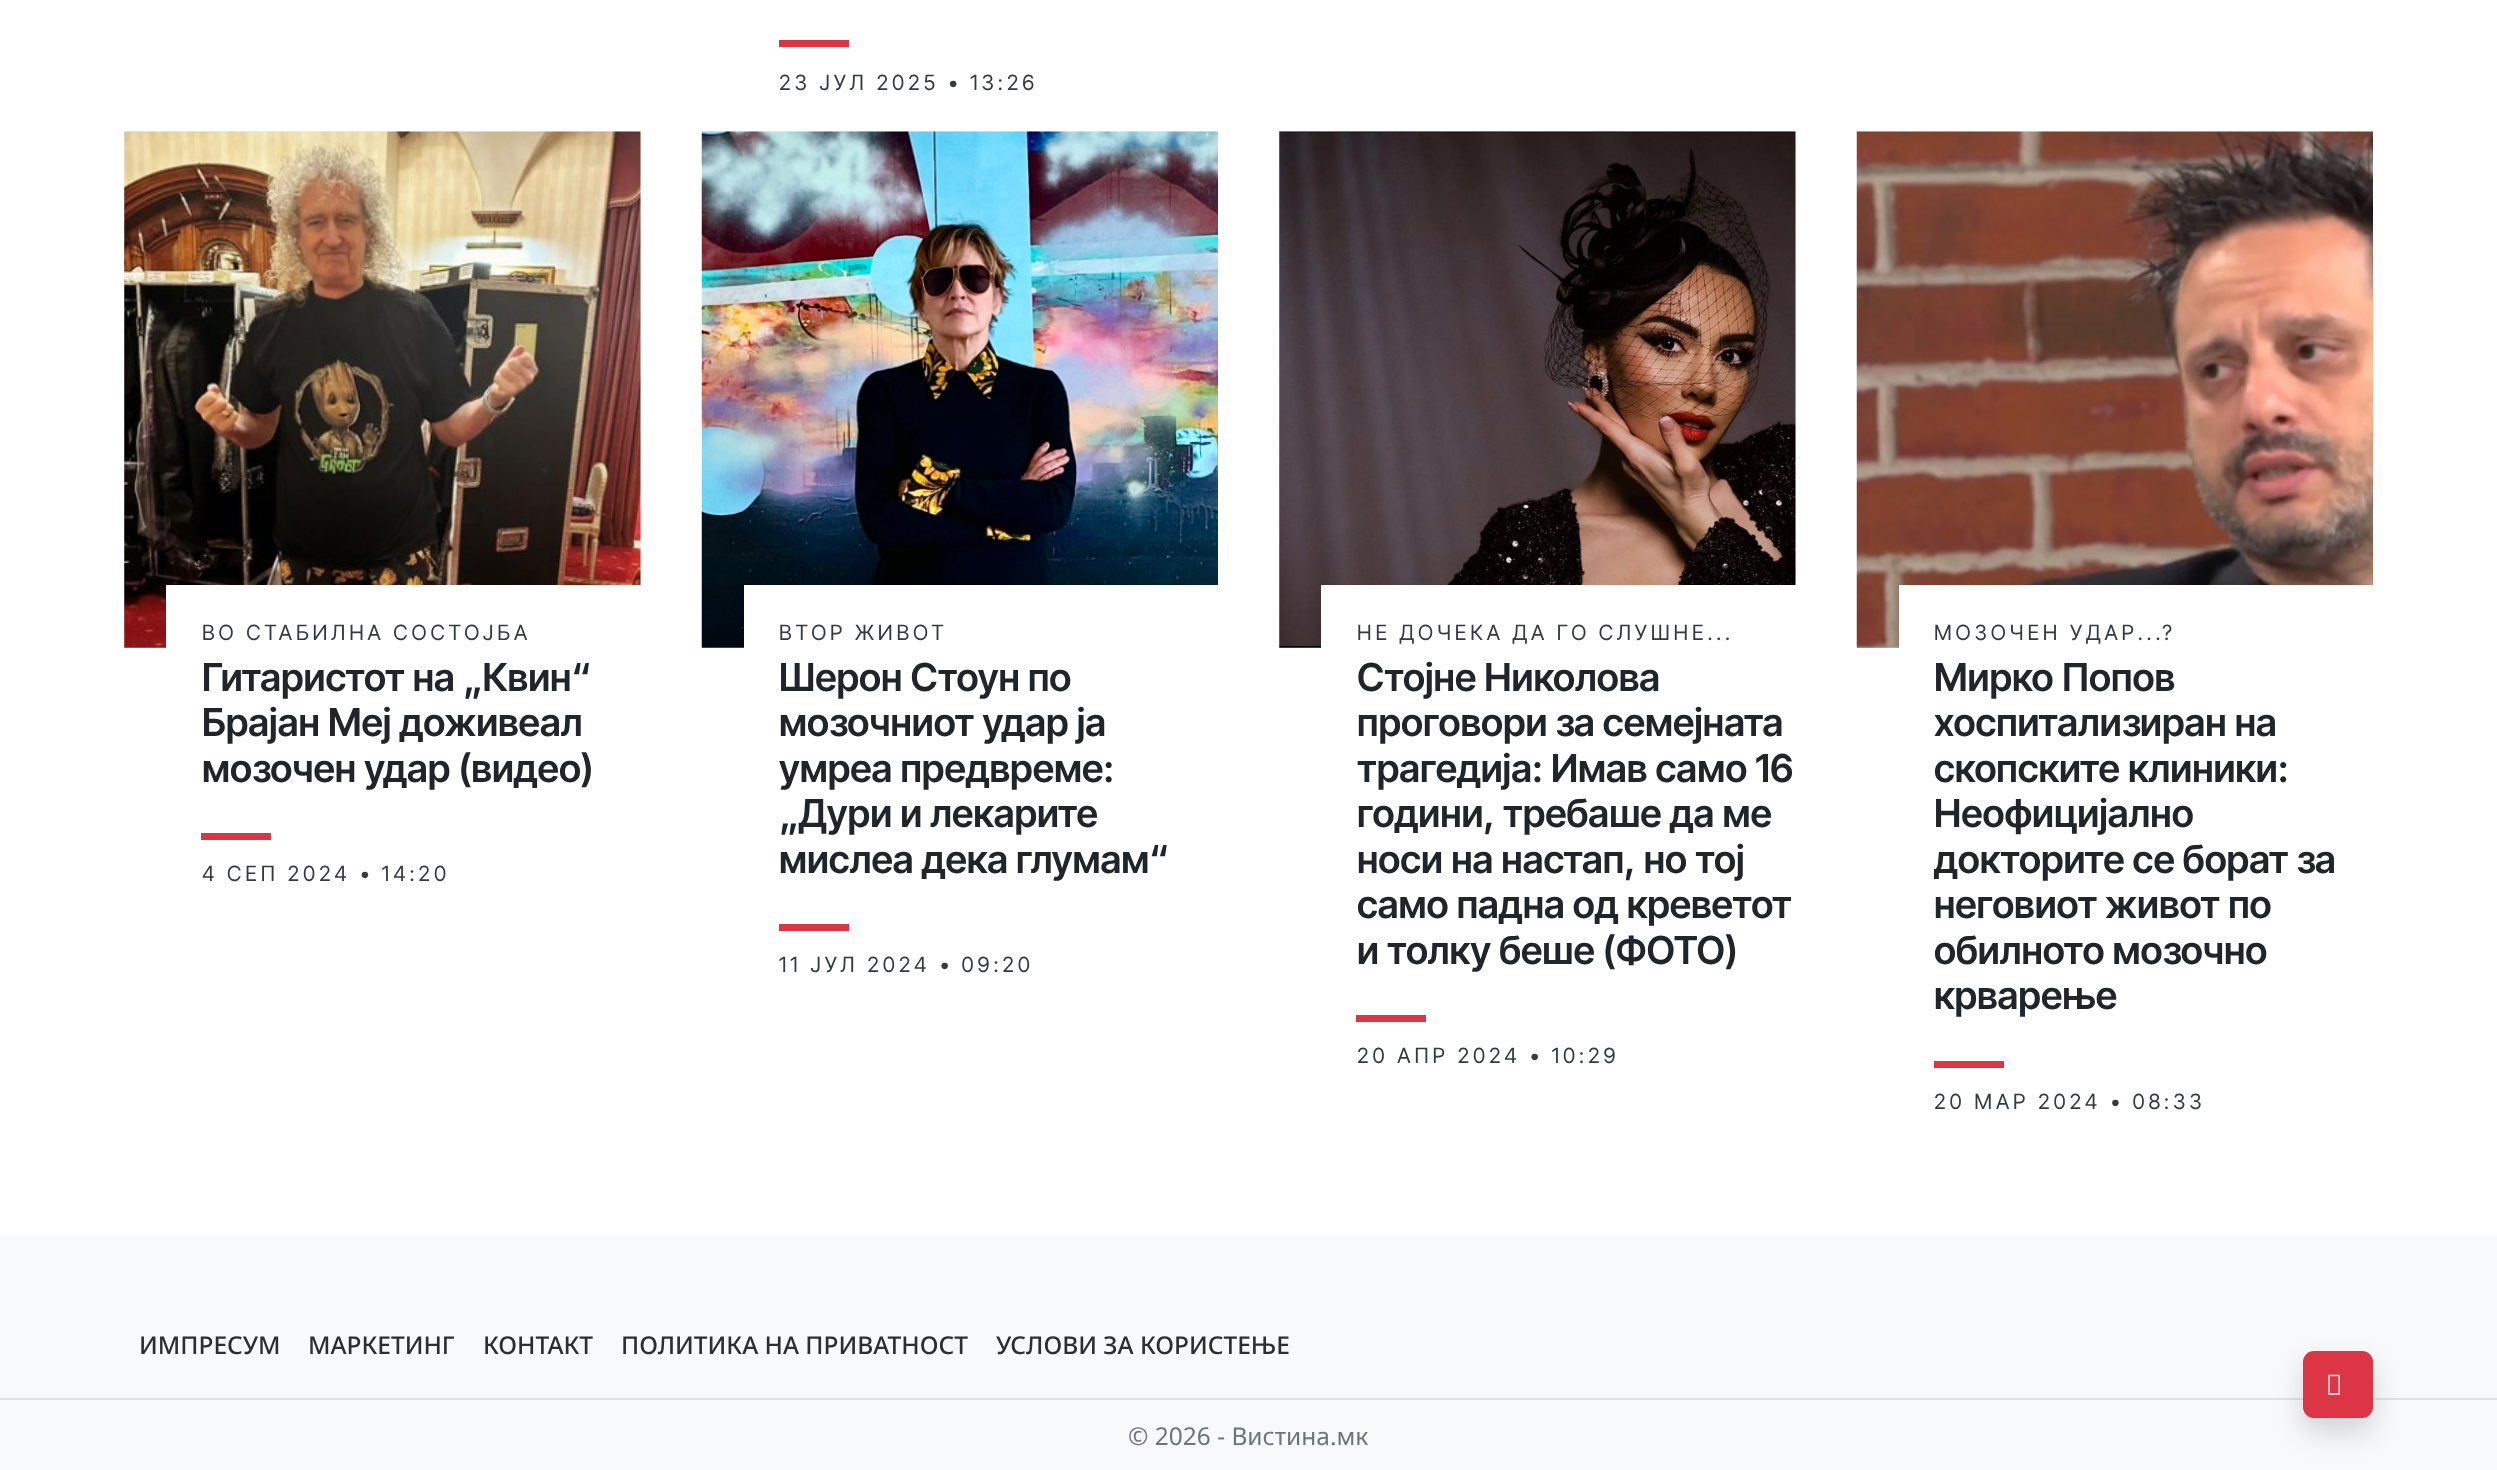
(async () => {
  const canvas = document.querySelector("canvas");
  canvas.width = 2497;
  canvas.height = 1470;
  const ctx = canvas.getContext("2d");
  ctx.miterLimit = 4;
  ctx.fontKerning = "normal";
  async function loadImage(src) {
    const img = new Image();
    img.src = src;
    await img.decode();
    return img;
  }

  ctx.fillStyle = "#ffffff";
  ctx.fillRect(0, 0, 2497, 1470);
  ctx.fillStyle = "#dc3545";
  ctx.fillRect(779, 40, 70, 7);
  ctx.fillStyle = "#f2f2f2";
  ctx.fillRect(124, 131, 517, 517);
  ctx.drawImage(await loadImage("img/1.png"), 124, 131, 517, 517);
  for (const [x, y, w, h, color] of [
    [166, 585, 475, 63, "#ffffff"],
    [201, 833, 70, 7, "#dc3545"],
    [702, 131, 516, 517, "#f2f2f2"],
  ]) {
    ctx.fillStyle = color;
    ctx.fillRect(x, y, w, h);
  }
  ctx.drawImage(await loadImage("img/2.png"), 701, 131, 517, 517);
  for (const [x, y, w, h, color] of [
    [744, 585, 474, 63, "#ffffff"],
    [779, 924, 70, 7, "#dc3545"],
    [1279, 131, 517, 517, "#f2f2f2"],
  ]) {
    ctx.fillStyle = color;
    ctx.fillRect(x, y, w, h);
  }
  ctx.drawImage(await loadImage("img/3.png"), 1279, 131, 517, 517);
  for (const [x, y, w, h, color] of [
    [1321, 585, 475, 63, "#ffffff"],
    [1356, 1015, 70, 7, "#dc3545"],
    [1857, 131, 516, 517, "#f2f2f2"],
  ]) {
    ctx.fillStyle = color;
    ctx.fillRect(x, y, w, h);
  }
  ctx.drawImage(await loadImage("img/4.png"), 1856, 131, 517, 517);
  for (const [x, y, w, h, color] of [
    [1899, 585, 474, 63, "#ffffff"],
    [1934, 1061, 70, 7, "#dc3545"],
    [0, 1236, 2497, 162, "#f8f9fa"],
    [0, 1400, 2497, 70, "#f8f9fa"],
    [0, 1398, 2497, 2, "#dee2e6"],
  ]) {
    ctx.fillStyle = color;
    ctx.fillRect(x, y, w, h);
  }
  ctx.fillStyle = "rgba(0, 0, 0, 0.15)";
  ctx.filter = "blur(14px)";
  ctx.beginPath();
  ctx.roundRect(2303, 1365, 70, 67, 11);
  ctx.fill();
  ctx.filter = "none";
  ctx.fillStyle = "#dc3545";
  ctx.beginPath();
  ctx.roundRect(2304, 1352, 68, 65, 10);
  ctx.fill();
  ctx.strokeStyle = "#dc3545";
  ctx.lineWidth = 2;
  ctx.stroke();
  ctx.drawImage(await loadImage("img/5.png"), 2328, 1374, 12, 21);
  ctx.letterSpacing = "3.85px";
  ctx.font = "21px Inter Tight";
  ctx.fillStyle = "#343a40";
  ctx.fillText("23 ЈУЛ 2025 • 13:26", 779, 90);
  ctx.fillText("ВО СТАБИЛНА СОСТОЈБА", 202, 640);
  ctx.letterSpacing = "0px";
  ctx.font = "600 38.5px Inter Tight";
  ctx.fillStyle = "#212529";
  for (const [text, x, y] of [
    ["Гитаристот на „Квин“", 202, 691],
    ["Брајан Меј доживеал", 202, 736],
    ["мозочен удар (видео)", 202, 782],
  ]) {
    ctx.fillText(text, x, y);
  }
  ctx.letterSpacing = "3.85px";
  ctx.font = "21px Inter Tight";
  ctx.fillStyle = "#343a40";
  ctx.fillText("4 СЕП 2024 • 14:20", 202, 881);
  ctx.fillText("ВТОР ЖИВОТ", 779, 640);
  ctx.letterSpacing = "0px";
  ctx.font = "600 38.5px Inter Tight";
  ctx.fillStyle = "#212529";
  for (const [text, x, y] of [
    ["Шерон Стоун по", 779, 691],
    ["мозочниот удар ја", 779, 736],
    ["умреа предвреме:", 779, 782],
    ["„Дури и лекарите", 779, 827],
    ["мислеа дека глумам“", 779, 873],
  ]) {
    ctx.fillText(text, x, y);
  }
  ctx.letterSpacing = "3.85px";
  ctx.font = "21px Inter Tight";
  ctx.fillStyle = "#343a40";
  ctx.fillText("11 ЈУЛ 2024 • 09:20", 779, 972);
  ctx.fillText("НЕ ДОЧЕКА ДА ГО СЛУШНЕ...", 1357, 640);
  ctx.letterSpacing = "0px";
  ctx.font = "600 38.5px Inter Tight";
  ctx.fillStyle = "#212529";
  for (const [text, x, y] of [
    ["Стојне Николова", 1357, 691],
    ["проговори за семејната", 1357, 736],
    ["трагедија: Имав само 16", 1357, 782],
    ["години, требаше да ме", 1357, 827],
    ["носи на настап, но тој", 1357, 873],
    ["само падна од креветот", 1357, 918],
    ["и толку беше (ФОТО)", 1357, 964],
  ]) {
    ctx.fillText(text, x, y);
  }
  ctx.letterSpacing = "3.85px";
  ctx.font = "21px Inter Tight";
  ctx.fillStyle = "#343a40";
  ctx.fillText("20 АПР 2024 • 10:29", 1357, 1063);
  ctx.fillText("МОЗОЧЕН УДАР...?", 1934, 640);
  ctx.letterSpacing = "0px";
  ctx.font = "600 38.5px Inter Tight";
  ctx.fillStyle = "#212529";
  for (const [text, x, y] of [
    ["Мирко Попов", 1934, 691],
    ["хоспитализиран на", 1934, 736],
    ["скопските клиники:", 1934, 782],
    ["Неофицијално", 1934, 827],
    ["докторите се борат за", 1934, 873],
    ["неговиот живот по", 1934, 918],
    ["обилното мозочно", 1934, 964],
    ["крварење", 1934, 1009],
  ]) {
    ctx.fillText(text, x, y);
  }
  ctx.letterSpacing = "3.85px";
  ctx.font = "21px Inter Tight";
  ctx.fillStyle = "#343a40";
  ctx.fillText("20 МАР 2024 • 08:33", 1934, 1109);
  ctx.letterSpacing = "0px";
  ctx.font = "500 24.5px Noto Sans";
  ctx.fillStyle = "#2d2e2f";
  for (const [text, x, y] of [
    ["ИМПРЕСУМ", 139, 1354],
    ["МАРКЕТИНГ", 308, 1354],
    ["КОНТАКТ", 483, 1354],
    ["ПОЛИТИКА НА ПРИВАТНОСТ", 621, 1354],
    ["УСЛОВИ ЗА КОРИСТЕЊЕ", 996, 1354],
  ]) {
    ctx.fillText(text, x, y);
  }
  ctx.font = "24.5px Noto Sans";
  ctx.fillStyle = "#6c757d";
  ctx.fillText("© 2026 - Вистина.мк", 1128, 1445);
})();
